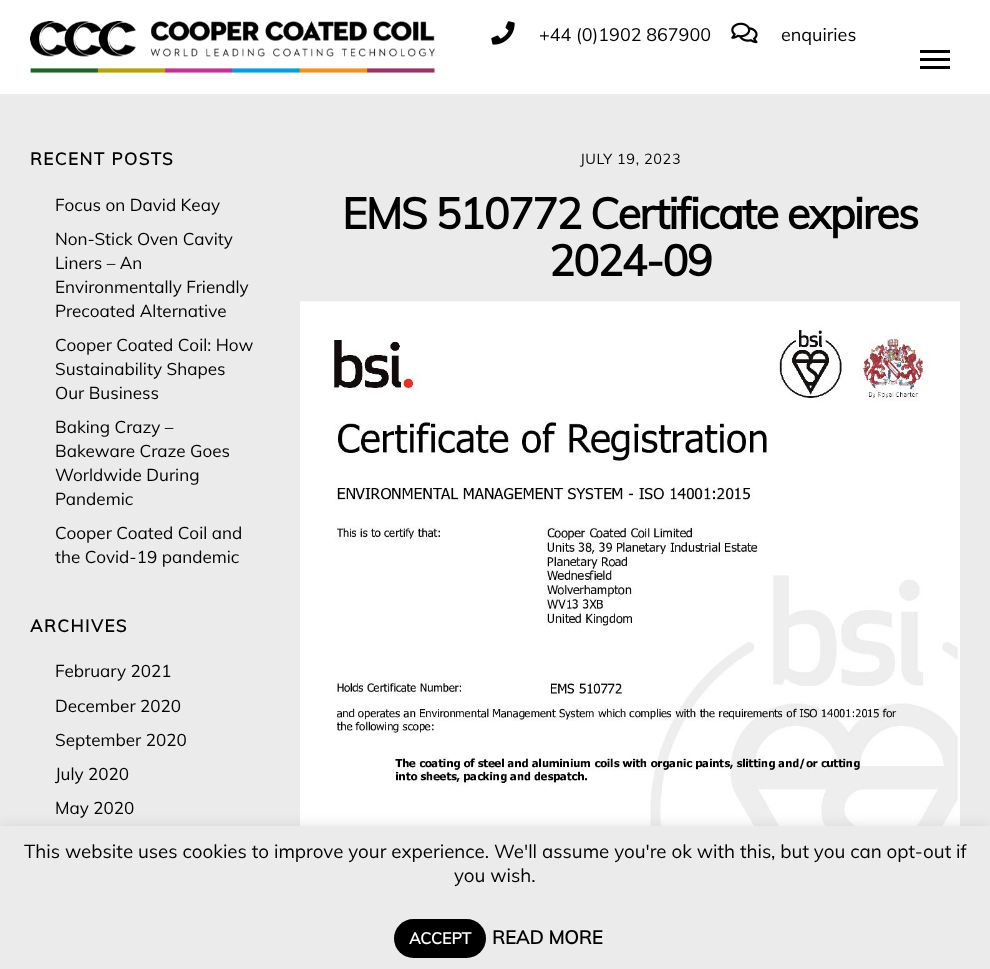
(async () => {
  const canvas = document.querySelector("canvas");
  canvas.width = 990;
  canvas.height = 969;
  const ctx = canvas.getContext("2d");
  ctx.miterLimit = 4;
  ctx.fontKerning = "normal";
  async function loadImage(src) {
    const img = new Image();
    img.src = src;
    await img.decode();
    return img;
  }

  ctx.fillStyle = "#ffffff";
  ctx.fillRect(0, 0, 990, 969);
  ctx.drawImage(await loadImage("img/1.png"), 30, 21, 405, 52);
  ctx.drawImage(await loadImage("img/2.png"), 491, 21, 24, 24);
  ctx.drawImage(await loadImage("img/3.png"), 731, 22, 27, 22);
  for (const [x, y, w, h, color] of [
    [920, 66, 30, 3, "#000000"],
    [920, 50, 30, 3, "#000000"],
    [920, 58, 30, 3, "#000000"],
    [0, 94, 990, 732, "#ebebeb"],
  ]) {
    ctx.fillStyle = color;
    ctx.fillRect(x, y, w, h);
  }
  ctx.drawImage(await loadImage("img/4.png"), 300, 301, 660, 525);
  ctx.fillStyle = "rgba(172, 171, 171, 0.3)";
  ctx.filter = "blur(6px)";
  ctx.beginPath();
  ctx.rect(0, 825, 990, 144);
  ctx.fill();
  ctx.filter = "none";
  ctx.fillStyle = "#ebebeb";
  ctx.fillRect(0, 826, 990, 143);
  ctx.fillStyle = "#000000";
  ctx.beginPath();
  ctx.roundRect(394, 919, 92, 39, 19.5);
  ctx.fill();
  ctx.font = "18px Muli";
  ctx.fillText("+44 (0)1902 867900", 539, 41);
  ctx.fillText("enquiries", 781, 41);
  ctx.letterSpacing = "1.5px";
  ctx.font = "bold 17.1px Muli";
  ctx.fillText("RECENT POSTS", 30, 165);
  ctx.letterSpacing = "0px";
  ctx.font = "17.1px Muli";
  for (const [text, x, y] of [
    ["Focus on David Keay", 55, 211],
    ["Non-Stick Oven Cavity", 55, 245],
    ["Liners – An", 55, 269],
    ["Environmentally Friendly", 55, 293],
    ["Precoated Alternative", 55, 317],
    ["Cooper Coated Coil: How", 55, 351],
    ["Sustainability Shapes", 55, 375],
    ["Our Business", 55, 399],
    ["Baking Crazy –", 55, 433],
    ["Bakeware Craze Goes", 55, 457],
    ["Worldwide During", 55, 481],
    ["Pandemic", 55, 505],
    ["Cooper Coated Coil and", 55, 539],
    ["the Covid-19 pandemic", 55, 563],
  ]) {
    ctx.fillText(text, x, y);
  }
  ctx.letterSpacing = "1.5px";
  ctx.font = "bold 17.1px Muli";
  ctx.fillText("ARCHIVES", 30, 632);
  ctx.letterSpacing = "0px";
  ctx.font = "17.1px Muli";
  for (const [text, x, y] of [
    ["February 2021", 55, 677],
    ["December 2020", 55, 712],
    ["September 2020", 55, 746],
    ["July 2020", 55, 780],
    ["May 2020", 55, 814],
  ]) {
    ctx.fillText(text, x, y);
  }
  ctx.letterSpacing = "0.6px";
  ctx.font = "14.5px Muli";
  ctx.fillText("JULY 19, 2023", 580, 164);
  ctx.letterSpacing = "-1.75px";
  ctx.font = "bold 43.25px Muli";
  ctx.fillText("EMS 510772 Certificate expires", 342, 229);
  ctx.fillText("2024-09", 549, 276);
  ctx.letterSpacing = "0px";
  ctx.font = "18.75px Muli";
  ctx.fillText("This website uses cookies to improve your experience. We'll assume you're ok with this, but you can opt-out if", 24, 858);
  ctx.fillText("you wish.", 454, 882);
  ctx.font = "bold 16px Muli";
  ctx.fillStyle = "#ffffff";
  ctx.fillText("ACCEPT", 409, 944);
  ctx.font = "bold 18.75px Muli";
  ctx.fillStyle = "#000000";
  ctx.fillText("READ MORE", 492, 944);
})();
